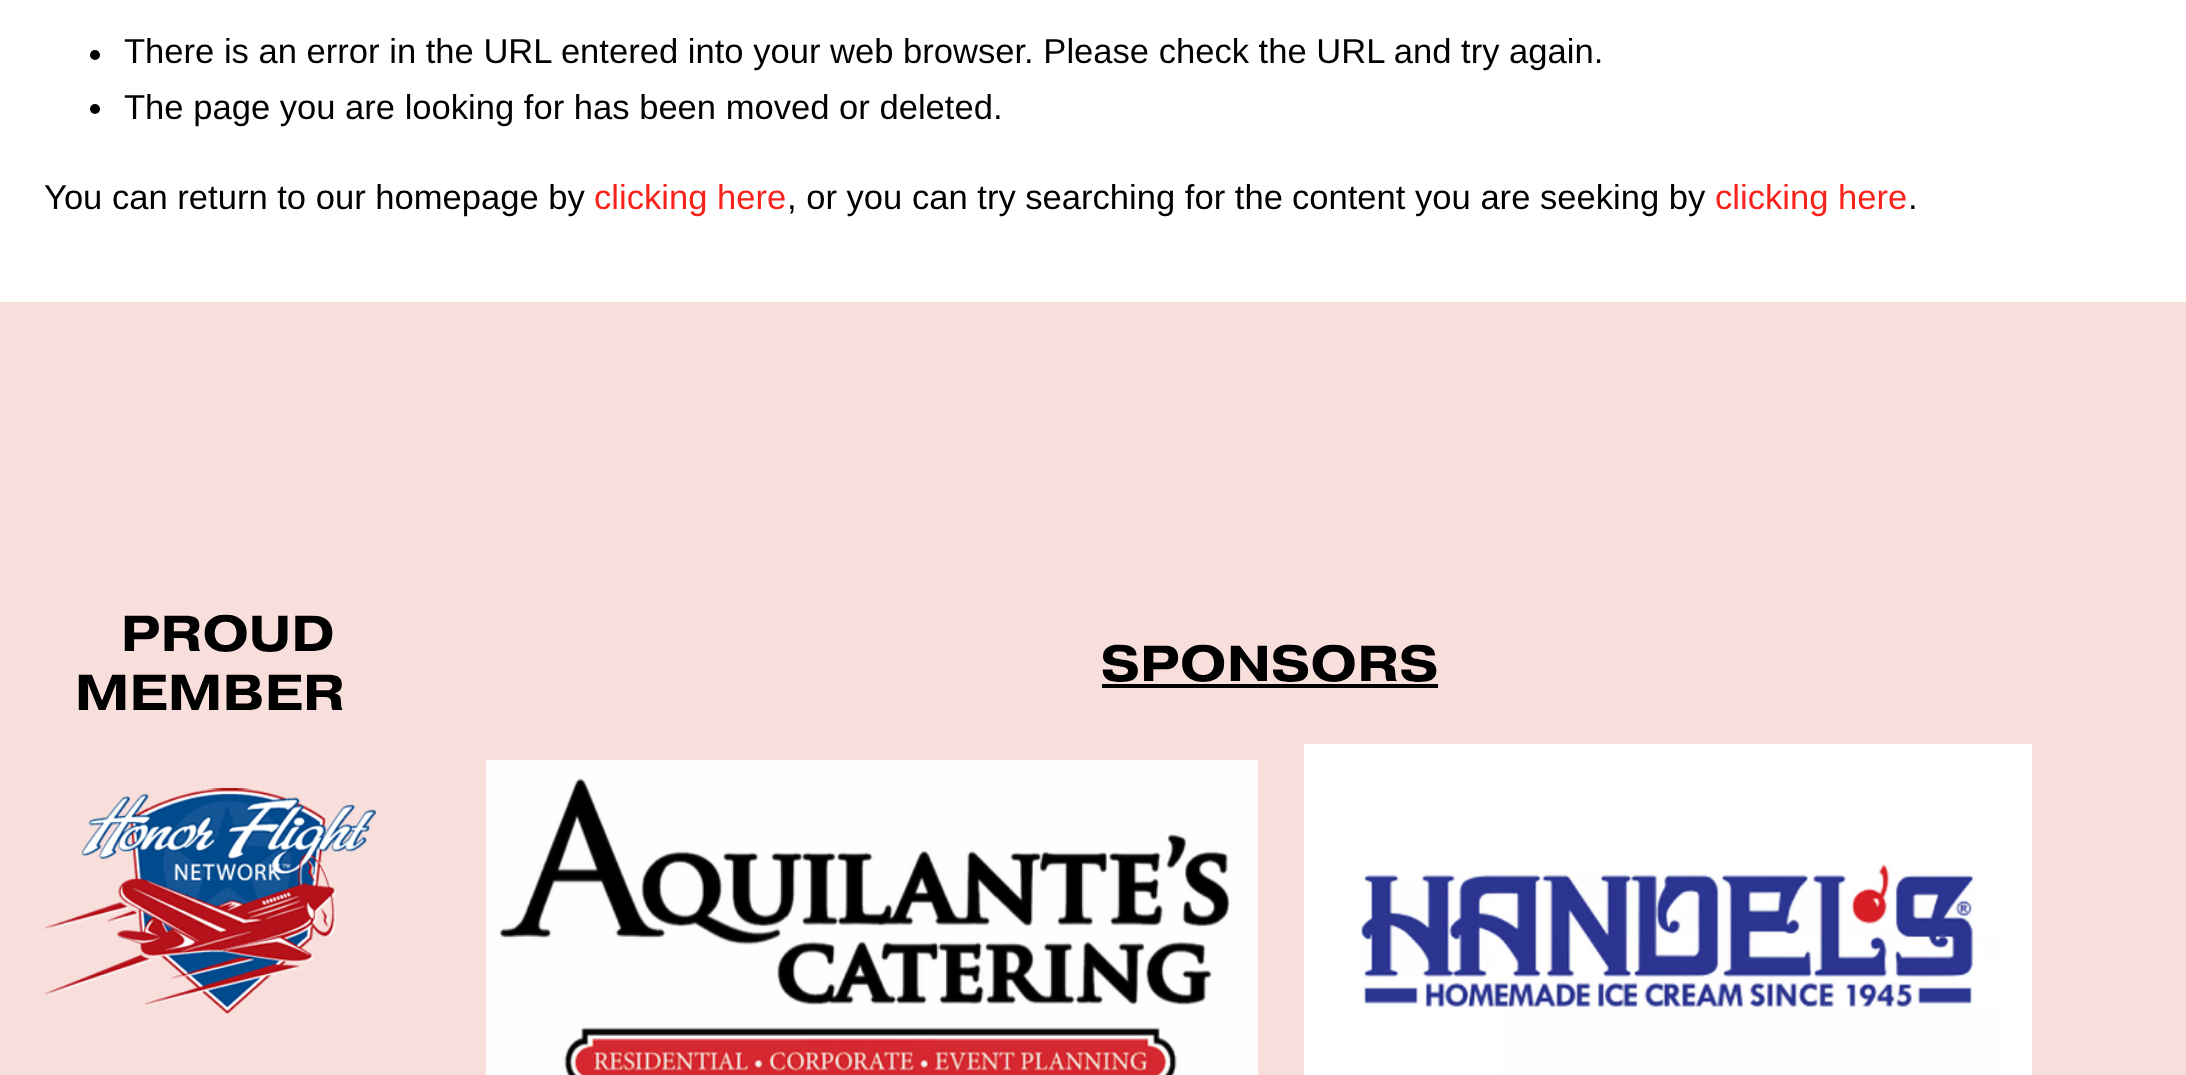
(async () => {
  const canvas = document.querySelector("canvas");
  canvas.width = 2186;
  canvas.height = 1075;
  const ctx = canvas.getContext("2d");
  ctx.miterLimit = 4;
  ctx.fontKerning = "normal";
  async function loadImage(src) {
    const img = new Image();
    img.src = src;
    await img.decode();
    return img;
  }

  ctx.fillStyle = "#ffffff";
  ctx.fillRect(0, 0, 2186, 1075);
  ctx.fillStyle = "#000000";
  ctx.beginPath();
  ctx.arc(95, 55, 5, 0, Math.PI * 2);
  ctx.fill();
  ctx.beginPath();
  ctx.arc(95, 109, 5, 0, Math.PI * 2);
  ctx.fill();
  ctx.fillStyle = "#f8dfdb";
  ctx.fillRect(0, 302, 2186, 773);
  ctx.fillStyle = "#000000";
  ctx.fillRect(1102, 684, 336, 4);
  ctx.drawImage(await loadImage("img/1.png"), 44, 788, 332, 226);
  ctx.drawImage(await loadImage("img/2.png"), 486, 760, 772, 315);
  ctx.drawImage(await loadImage("img/3.png"), 1304, 744, 728, 331);
  ctx.font = "34.6px Liberation Sans";
  for (const [text, x, y] of [
    ["There is an error in the URL entered into your web browser. Please check the URL and try again.", 124, 63],
    ["The page you are looking for has been moved or deleted.", 124, 119],
    ["You can return to our homepage by", 44, 209],
  ]) {
    ctx.fillText(text, x, y);
  }
  ctx.fillStyle = "#fc221c";
  ctx.fillText("clicking here", 594, 209);
  ctx.fillStyle = "#000000";
  ctx.fillText(", or you can try searching for the", 787, 209);
  ctx.fillText("content you are seeking by", 1292, 209);
  ctx.fillStyle = "#fc221c";
  ctx.fillText("clicking here", 1715, 209);
  ctx.fillStyle = "#000000";
  ctx.fillText(".", 1908, 209);
  ctx.letterSpacing = "0.5px";
  ctx.font = "bold 50.5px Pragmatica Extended";
  for (const [text, x, y] of [
    ["PROUD", 121, 651],
    ["MEMBER", 75, 710],
    ["SPONSORS", 1101, 681],
  ]) {
    ctx.fillText(text, x, y);
  }
})();
